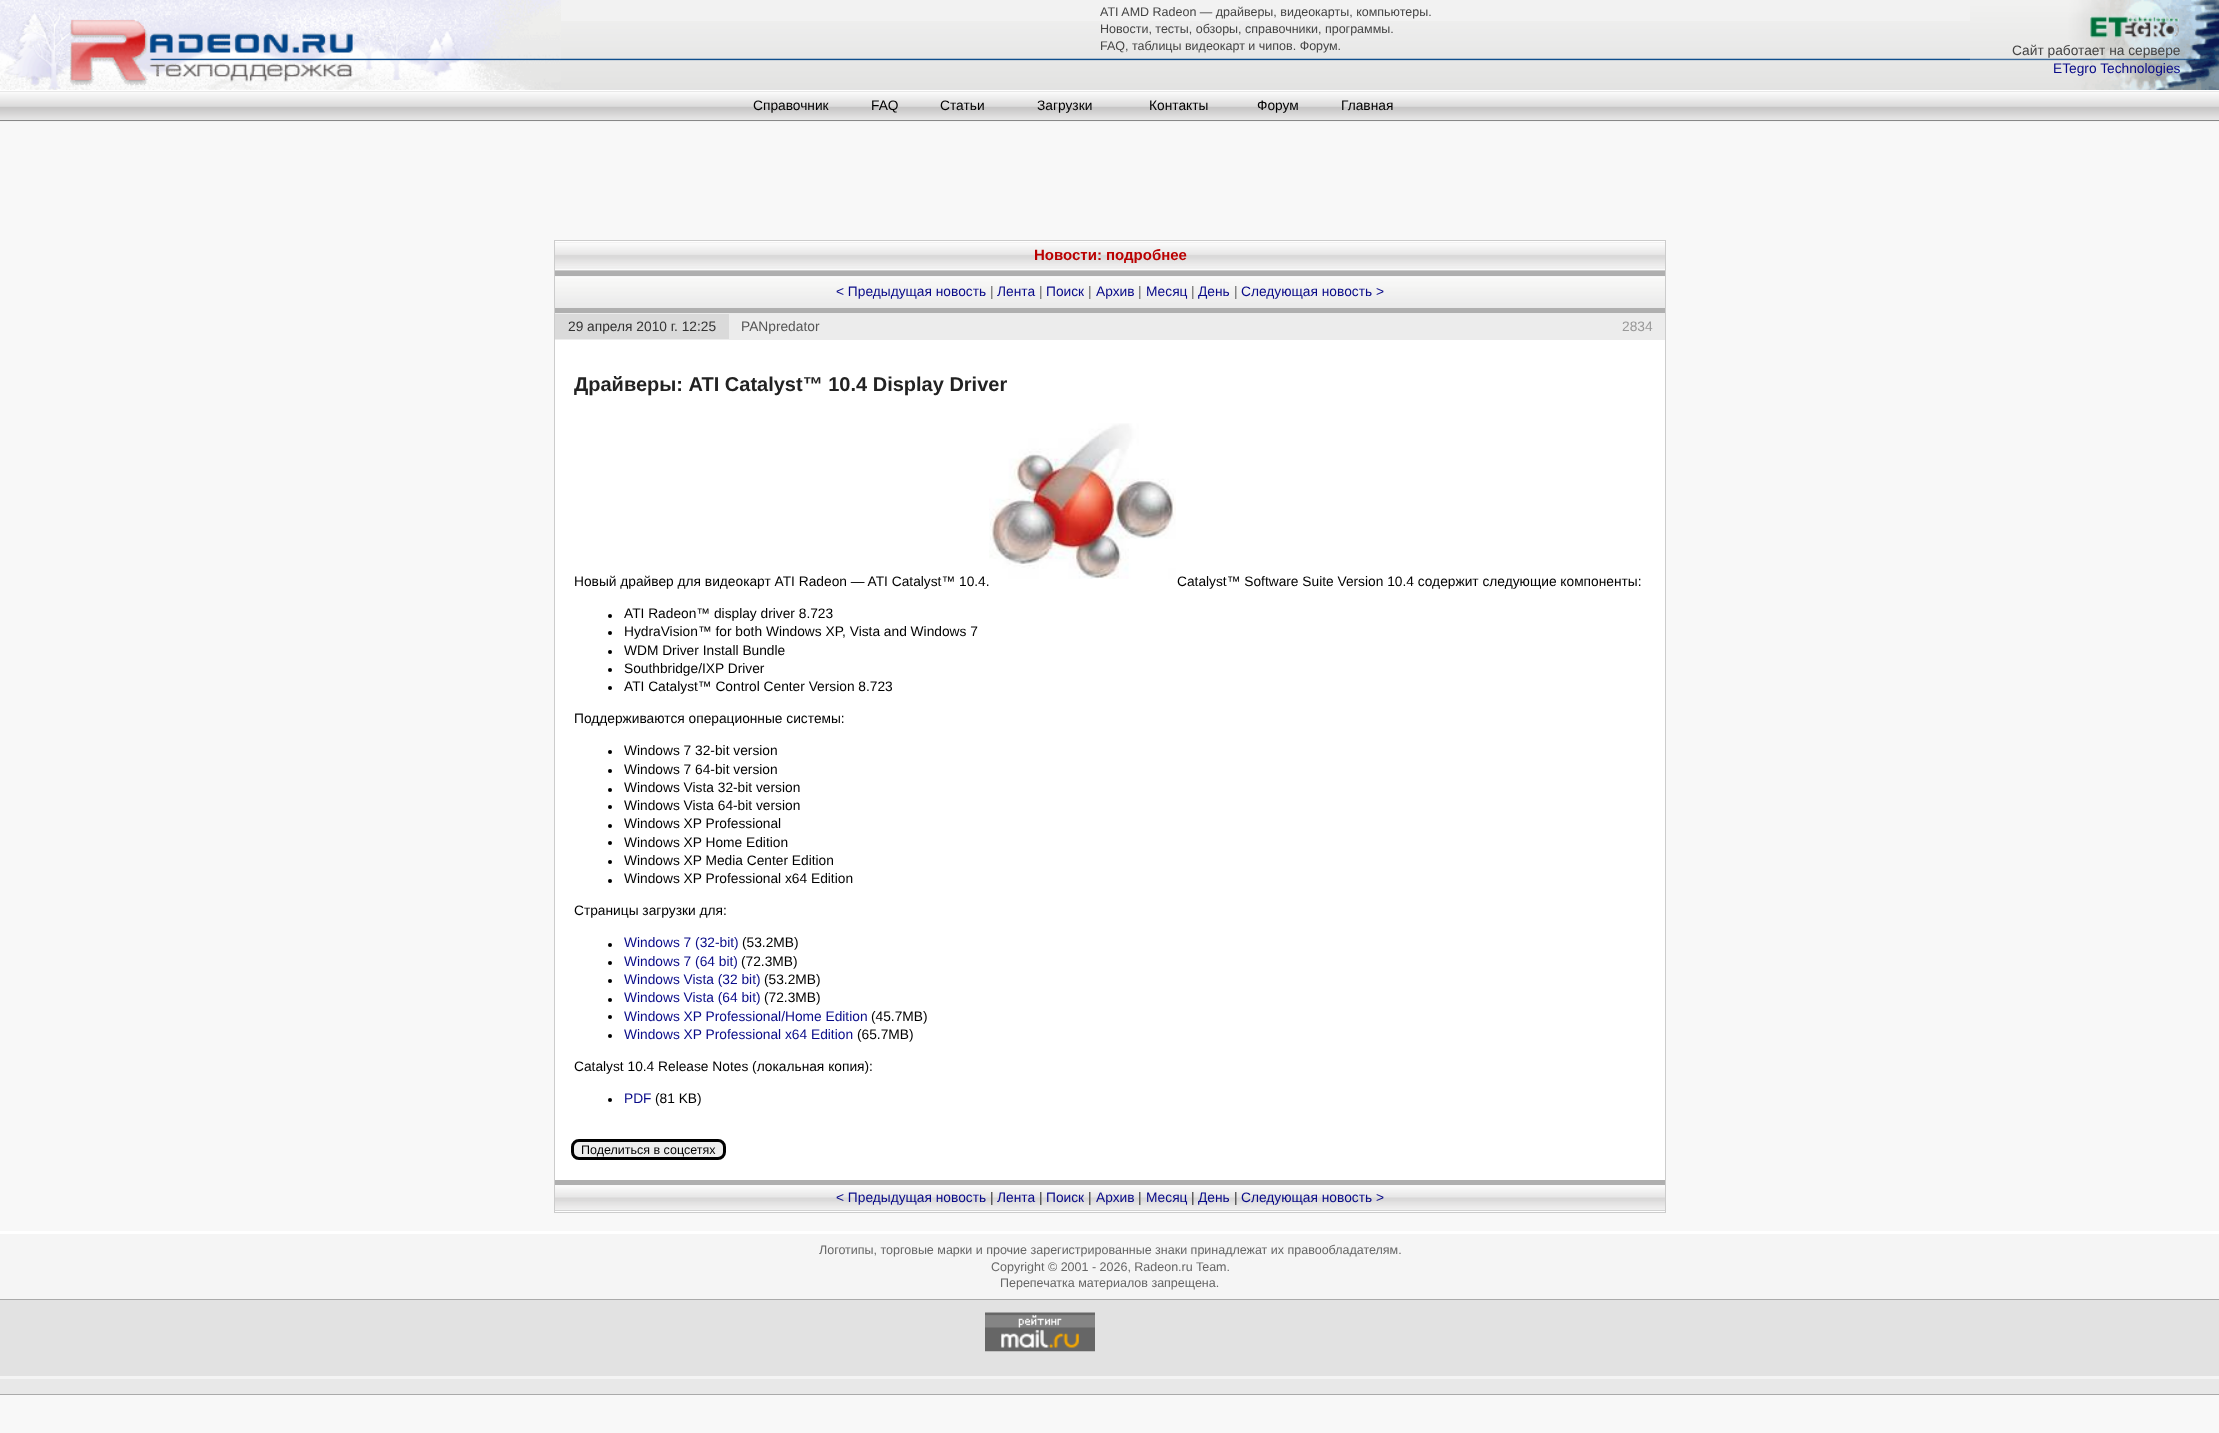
(async () => {
  const canvas = document.querySelector("canvas");
  canvas.width = 2219;
  canvas.height = 1433;
  const ctx = canvas.getContext("2d");
  ctx.miterLimit = 4;
  ctx.fontKerning = "normal";
  async function loadImage(src) {
    const img = new Image();
    img.src = src;
    await img.decode();
    return img;
  }

  ctx.fillStyle = "#f8f8f8";
  ctx.fillRect(0, 0, 2219, 1433);
  ctx.fillStyle = "#f2f2f2";
  ctx.fillRect(561, 0, 1409, 21);
  ctx.drawImage(await loadImage("img/1.png"), 561, 21, 1409, 69);
  ctx.drawImage(await loadImage("img/2.png"), 0, 0, 561, 90);
  ctx.drawImage(await loadImage("img/3.png"), 1970, 0, 249, 90);
  ctx.drawImage(await loadImage("img/4.png"), 2090, 16, 89, 22);
  ctx.drawImage(await loadImage("img/5.png"), 0, 91, 2219, 31);
  for (const [x, y, w, h, color] of [
    [0, 90, 2219, 1, "#ffffff"],
    [0, 120, 2219, 1, "#888888"],
    [555, 340, 1110, 872, "#ffffff"],
  ]) {
    ctx.fillStyle = color;
    ctx.fillRect(x, y, w, h);
  }
  ctx.strokeStyle = "#cccccc";
  ctx.strokeRect(554.5, 240.5, 1111, 972);
  ctx.drawImage(await loadImage("img/6.png"), 555, 242, 1110, 28);
  ctx.fillRect(555, 241, 1110, 1);
  ctx.fillStyle = "#cccccc";
  ctx.fillRect(555, 270, 1110, 1);
  ctx.drawImage(await loadImage("img/7.png"), 555, 276, 1110, 32);
  for (const [x, y, w, h, color] of [
    [555, 271, 1110, 5, "#afafaf"],
    [555, 308, 1110, 5, "#afafaf"],
    [555, 313, 1110, 27, "#ececec"],
    [555, 314, 174, 25, "#dadada"],
  ]) {
    ctx.fillStyle = color;
    ctx.fillRect(x, y, w, h);
  }
  ctx.drawImage(await loadImage("img/8.png"), 989, 423, 187, 156);
  ctx.fillStyle = "#000000";
  ctx.beginPath();
  ctx.arc(610, 616, 2, 0, Math.PI * 2);
  ctx.fill();
  ctx.beginPath();
  ctx.arc(610, 633, 2, 0, Math.PI * 2);
  ctx.fill();
  ctx.beginPath();
  ctx.arc(610, 652, 2, 0, Math.PI * 2);
  ctx.fill();
  ctx.beginPath();
  ctx.arc(610, 670, 2, 0, Math.PI * 2);
  ctx.fill();
  ctx.beginPath();
  ctx.arc(610, 688, 2, 0, Math.PI * 2);
  ctx.fill();
  ctx.beginPath();
  ctx.arc(610, 752, 2, 0, Math.PI * 2);
  ctx.fill();
  ctx.beginPath();
  ctx.arc(610, 771, 2, 0, Math.PI * 2);
  ctx.fill();
  ctx.beginPath();
  ctx.arc(610, 790, 2, 0, Math.PI * 2);
  ctx.fill();
  ctx.beginPath();
  ctx.arc(610, 807, 2, 0, Math.PI * 2);
  ctx.fill();
  ctx.beginPath();
  ctx.arc(610, 826, 2, 0, Math.PI * 2);
  ctx.fill();
  ctx.beginPath();
  ctx.arc(610, 843, 2, 0, Math.PI * 2);
  ctx.fill();
  ctx.beginPath();
  ctx.arc(610, 862, 2, 0, Math.PI * 2);
  ctx.fill();
  ctx.beginPath();
  ctx.arc(610, 881, 2, 0, Math.PI * 2);
  ctx.fill();
  ctx.beginPath();
  ctx.arc(610, 945, 2, 0, Math.PI * 2);
  ctx.fill();
  ctx.beginPath();
  ctx.arc(610, 963, 2, 0, Math.PI * 2);
  ctx.fill();
  ctx.beginPath();
  ctx.arc(610, 981, 2, 0, Math.PI * 2);
  ctx.fill();
  ctx.beginPath();
  ctx.arc(610, 1000, 2, 0, Math.PI * 2);
  ctx.fill();
  ctx.beginPath();
  ctx.arc(610, 1017, 2, 0, Math.PI * 2);
  ctx.fill();
  ctx.beginPath();
  ctx.arc(610, 1036, 2, 0, Math.PI * 2);
  ctx.fill();
  ctx.beginPath();
  ctx.arc(610, 1100, 2, 0, Math.PI * 2);
  ctx.fill();
  ctx.fillStyle = "#eeeeee";
  ctx.beginPath();
  ctx.roundRect(572.5, 1140.5, 152, 18, 6.5);
  ctx.fill();
  ctx.strokeStyle = "#000000";
  ctx.lineWidth = 3;
  ctx.stroke();
  ctx.drawImage(await loadImage("img/9.png"), 555, 1185, 1110, 25);
  for (const [x, y, w, h, color] of [
    [555, 1180, 1110, 5, "#afafaf"],
    [555, 1210, 1110, 1, "#d2d2d2"],
    [0, 1234, 2219, 65, "#f5f5f5"],
    [0, 1231, 2219, 3, "#ffffff"],
    [0, 1299, 2219, 1, "#aaaaaa"],
    [0, 1300, 2219, 76, "#e2e2e2"],
  ]) {
    ctx.fillStyle = color;
    ctx.fillRect(x, y, w, h);
  }
  ctx.drawImage(await loadImage("img/10.png"), 985, 1312, 110, 40);
  for (const [x, y, w, h, color] of [
    [0, 1379, 2219, 15, "#e8e8e8"],
    [0, 1376, 2219, 3, "#f4f4f4"],
    [0, 1394, 2219, 1, "#aaaaaa"],
  ]) {
    ctx.fillStyle = color;
    ctx.fillRect(x, y, w, h);
  }
  ctx.font = "12.5px Liberation Sans";
  ctx.fillStyle = "#444444";
  for (const [text, x, y] of [
    ["ATI AMD Radeon — драйверы, видеокарты, компьютеры.", 1100, 16],
    ["Новости, тесты, обзоры, справочники, программы.", 1100, 33],
    ["FAQ, таблицы видеокарт и чипов. Форум.", 1100, 50],
  ]) {
    ctx.fillText(text, x, y);
  }
  ctx.font = "13.75px Liberation Sans";
  ctx.fillText("Сайт работает на сервере", 2012, 55);
  ctx.fillStyle = "#080a88";
  ctx.fillText("ETegro Technologies", 2053, 73);
  ctx.fillStyle = "#000000";
  for (const [text, x, y] of [
    ["Справочник", 753, 110],
    ["FAQ", 871, 110],
    ["Статьи", 940, 110],
    ["Загрузки", 1037, 110],
    ["Контакты", 1149, 110],
    ["Форум", 1257, 110],
    ["Главная", 1341, 110],
  ]) {
    ctx.fillText(text, x, y);
  }
  ctx.font = "bold 15px Liberation Sans";
  ctx.fillStyle = "#bb0000";
  ctx.fillText("Новости: подробнее", 1034, 260);
  ctx.font = "13.75px Liberation Sans";
  ctx.fillStyle = "#080a88";
  ctx.fillText("< Предыдущая новость", 836, 296);
  ctx.fillStyle = "#666666";
  ctx.fillText("|", 990, 296);
  ctx.fillStyle = "#080a88";
  ctx.fillText("Лента", 997, 296);
  ctx.fillStyle = "#666666";
  ctx.fillText("|", 1039, 296);
  ctx.fillStyle = "#080a88";
  ctx.fillText("Поиск", 1046, 296);
  ctx.fillStyle = "#666666";
  ctx.fillText("|", 1088, 296);
  ctx.fillStyle = "#080a88";
  ctx.fillText("Архив", 1096, 296);
  ctx.fillStyle = "#666666";
  ctx.fillText("|", 1138, 296);
  ctx.fillStyle = "#080a88";
  ctx.fillText("Месяц", 1146, 296);
  ctx.fillStyle = "#666666";
  ctx.fillText("|", 1191, 296);
  ctx.fillStyle = "#080a88";
  ctx.fillText("День", 1198, 296);
  ctx.fillStyle = "#666666";
  ctx.fillText("|", 1234, 296);
  ctx.fillStyle = "#080a88";
  ctx.fillText("Следующая новость >", 1241, 296);
  ctx.fillStyle = "#333333";
  ctx.fillText("29 апреля 2010 г. 12:25", 568, 331);
  ctx.fillStyle = "#555555";
  ctx.fillText("PANpredator", 741, 331);
  ctx.fillStyle = "#999999";
  ctx.fillText("2834", 1622, 331);
  ctx.font = "bold 20px Liberation Sans";
  ctx.fillStyle = "#222222";
  ctx.fillText("Драйверы: ATI Catalyst™ 10.4 Display Driver", 574, 391);
  ctx.font = "13.75px Liberation Sans";
  ctx.fillStyle = "#000000";
  for (const [text, x, y] of [
    ["Новый драйвер для видеокарт ATI Radeon — ATI Catalyst™ 10.4.", 574, 586],
    ["Catalyst™ Software Suite Version 10.4 содержит следующие компоненты:", 1177, 586],
    ["ATI Radeon™ display driver 8.723", 624, 618],
    ["HydraVision™ for both Windows XP, Vista and Windows 7", 624, 636],
    ["WDM Driver Install Bundle", 624, 655],
    ["Southbridge/IXP Driver", 624, 673],
    ["ATI Catalyst™ Control Center Version 8.723", 624, 691],
    ["Поддерживаются операционные системы:", 574, 723],
    ["Windows 7 32-bit version", 624, 755],
    ["Windows 7 64-bit version", 624, 774],
    ["Windows Vista 32-bit version", 624, 792],
    ["Windows Vista 64-bit version", 624, 810],
    ["Windows XP Professional", 624, 828],
    ["Windows XP Home Edition", 624, 847],
    ["Windows XP Media Center Edition", 624, 865],
    ["Windows XP Professional x64 Edition", 624, 883],
    ["Страницы загрузки для:", 574, 915],
  ]) {
    ctx.fillText(text, x, y);
  }
  ctx.fillStyle = "#080a88";
  ctx.fillText("Windows 7 (32-bit)", 624, 947);
  ctx.fillStyle = "#000000";
  ctx.fillText("(53.2MB)", 742, 947);
  ctx.fillStyle = "#080a88";
  ctx.fillText("Windows 7 (64 bit)", 624, 966);
  ctx.fillStyle = "#000000";
  ctx.fillText("(72.3MB)", 741, 966);
  ctx.fillStyle = "#080a88";
  ctx.fillText("Windows Vista (32 bit)", 624, 984);
  ctx.fillStyle = "#000000";
  ctx.fillText("(53.2MB)", 764, 984);
  ctx.fillStyle = "#080a88";
  ctx.fillText("Windows Vista (64 bit)", 624, 1002);
  ctx.fillStyle = "#000000";
  ctx.fillText("(72.3MB)", 764, 1002);
  ctx.fillStyle = "#080a88";
  ctx.fillText("Windows XP Professional/Home Edition", 624, 1021);
  ctx.fillStyle = "#000000";
  ctx.fillText("(45.7MB)", 871, 1021);
  ctx.fillStyle = "#080a88";
  ctx.fillText("Windows XP Professional x64 Edition", 624, 1039);
  ctx.fillStyle = "#000000";
  ctx.fillText("(65.7MB)", 857, 1039);
  ctx.fillText("Catalyst 10.4 Release Notes (локальная копия):", 574, 1071);
  ctx.fillStyle = "#080a88";
  ctx.fillText("PDF", 624, 1103);
  ctx.fillStyle = "#000000";
  ctx.fillText("(81 KB)", 655, 1103);
  ctx.font = "12.5px Liberation Sans";
  ctx.fillText("Поделиться в соцсетях", 581, 1154);
  ctx.font = "13.75px Liberation Sans";
  ctx.fillStyle = "#080a88";
  ctx.fillText("< Предыдущая новость", 836, 1202);
  ctx.fillStyle = "#333333";
  ctx.fillText("|", 990, 1202);
  ctx.fillStyle = "#080a88";
  ctx.fillText("Лента", 997, 1202);
  ctx.fillStyle = "#333333";
  ctx.fillText("|", 1039, 1202);
  ctx.fillStyle = "#080a88";
  ctx.fillText("Поиск", 1046, 1202);
  ctx.fillStyle = "#333333";
  ctx.fillText("|", 1088, 1202);
  ctx.fillStyle = "#080a88";
  ctx.fillText("Архив", 1096, 1202);
  ctx.fillStyle = "#333333";
  ctx.fillText("|", 1138, 1202);
  ctx.fillStyle = "#080a88";
  ctx.fillText("Месяц", 1146, 1202);
  ctx.fillStyle = "#333333";
  ctx.fillText("|", 1191, 1202);
  ctx.fillStyle = "#080a88";
  ctx.fillText("День", 1198, 1202);
  ctx.fillStyle = "#333333";
  ctx.fillText("|", 1234, 1202);
  ctx.fillStyle = "#080a88";
  ctx.fillText("Следующая новость >", 1241, 1202);
  ctx.font = "12.5px Liberation Sans";
  ctx.fillStyle = "#666666";
  for (const [text, x, y] of [
    ["Логотипы, торговые марки и прочие зарегистрированные знаки принадлежат их правообладателям.", 819, 1254],
    ["Copyright © 2001 - 2026, Radeon.ru Team.", 991, 1271],
    ["Перепечатка материалов запрещена.", 1000, 1287],
  ]) {
    ctx.fillText(text, x, y);
  }
})();
